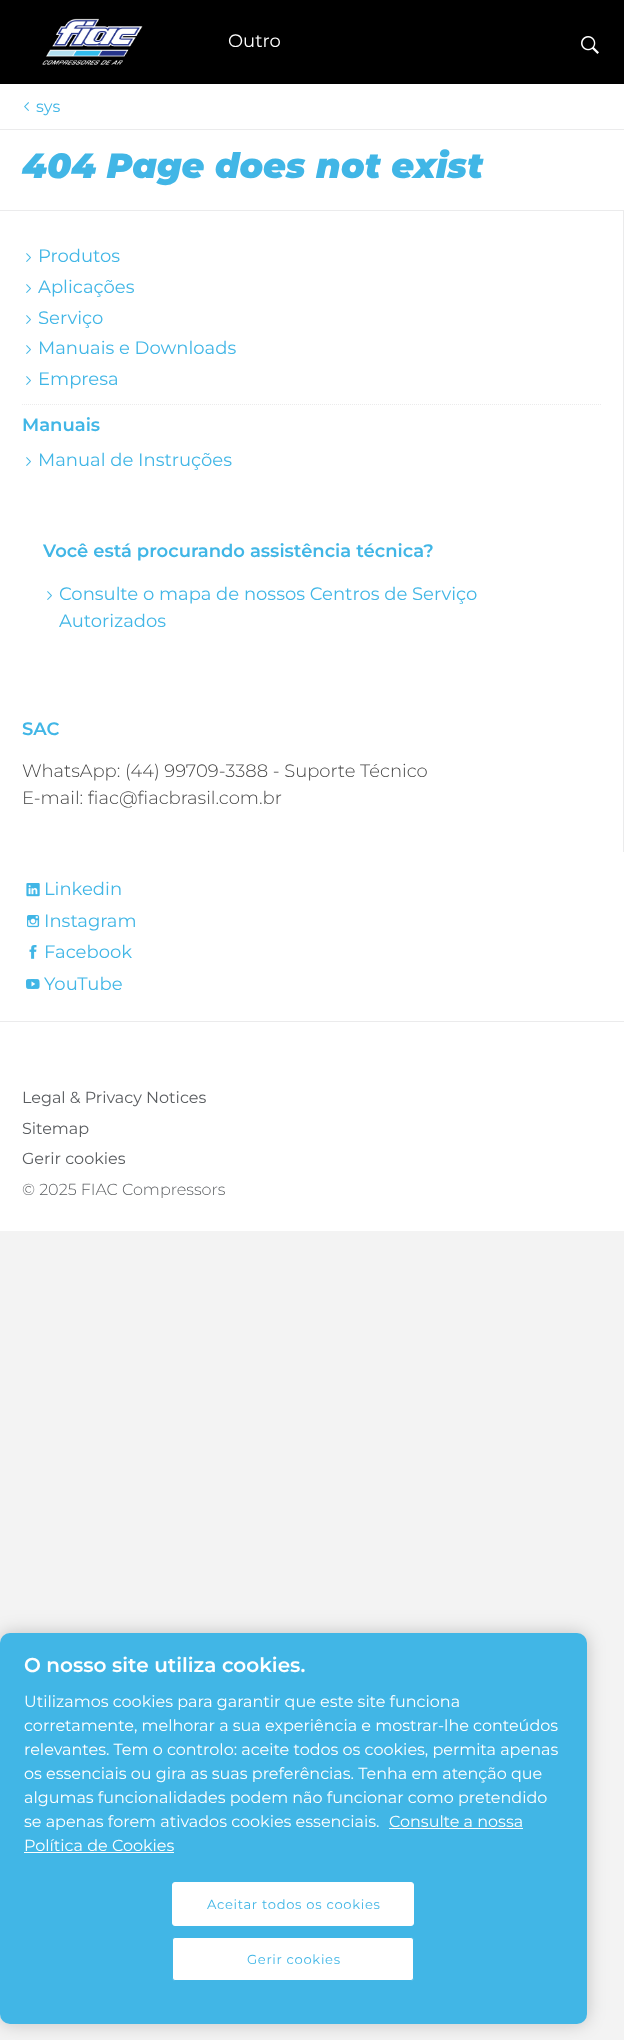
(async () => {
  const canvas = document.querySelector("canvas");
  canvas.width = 624;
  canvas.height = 2040;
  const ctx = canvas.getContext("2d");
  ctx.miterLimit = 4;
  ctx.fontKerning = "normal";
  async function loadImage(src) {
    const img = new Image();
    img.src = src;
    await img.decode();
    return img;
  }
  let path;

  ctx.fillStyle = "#f3f3f3";
  ctx.fillRect(0, 0, 624, 2040);
  ctx.fillStyle = "#ffffff";
  ctx.fillRect(0, 84, 624, 1147);
  ctx.fillStyle = "#000000";
  ctx.fillRect(0, 0, 624, 84);
  ctx.drawImage(await loadImage("img/1.png"), 42, 18, 101, 47);
  ctx.drawImage(await loadImage("img/2.png"), 581, 36, 18, 18);
  ctx.drawImage(await loadImage("img/3.png"), 24, 102, 5, 9);
  for (const [x, y, w, h, color] of [
    [0, 129, 624, 1, "#ebebec"],
    [0, 210, 624, 1, "#ebebec"],
    [623, 211, 1, 641, "#ebebec"],
  ]) {
    ctx.fillStyle = color;
    ctx.fillRect(x, y, w, h);
  }
  ctx.drawImage(await loadImage("img/4.png"), 26, 253, 5, 9);
  ctx.drawImage(await loadImage("img/4.png"), 26, 284, 5, 9);
  ctx.drawImage(await loadImage("img/4.png"), 26, 315, 5, 9);
  ctx.drawImage(await loadImage("img/4.png"), 26, 345, 5, 9);
  ctx.drawImage(await loadImage("img/4.png"), 26, 376, 5, 9);
  path = new Path2D("M22 404.5H601");
  ctx.strokeStyle = "#ebebec";
  ctx.setLineDash([1, 1]);
  ctx.stroke(path);
  ctx.drawImage(await loadImage("img/4.png"), 26, 457, 5, 9);
  ctx.drawImage(await loadImage("img/4.png"), 47, 591, 5, 9);
  ctx.drawImage(await loadImage("img/5.png"), 26, 883, 14, 14);
  ctx.drawImage(await loadImage("img/6.png"), 27, 915, 13, 13);
  ctx.drawImage(await loadImage("img/7.png"), 29, 945, 8, 14);
  ctx.drawImage(await loadImage("img/8.png"), 26, 979, 14, 10);
  ctx.fillRect(0, 1021, 624, 1);
  ctx.fillStyle = "rgba(0, 0, 0, 0.2)";
  ctx.filter = "blur(9px)";
  ctx.beginPath();
  ctx.roundRect(0, 1633, 587, 391, 10);
  ctx.fill();
  ctx.filter = "none";
  ctx.fillStyle = "#41b6e6";
  ctx.beginPath();
  ctx.roundRect(0, 1633, 587, 391, 10);
  ctx.fill();
  ctx.fillStyle = "#ffffff";
  ctx.fillRect(389, 1828, 134, 1);
  ctx.fillRect(24, 1852, 150, 1);
  ctx.beginPath();
  ctx.roundRect(172.5, 1882.5, 241, 43, 2.5);
  ctx.fill();
  ctx.strokeStyle = "#ffffff";
  ctx.setLineDash([]);
  ctx.stroke();
  ctx.beginPath();
  ctx.roundRect(172.5, 1937.5, 241, 43, 2.5);
  ctx.fill();
  ctx.strokeStyle = "#41b6e6";
  ctx.stroke();
  ctx.font = "18px Montserrat";
  ctx.fillText("Outro", 228, 47);
  ctx.font = "16px Montserrat";
  ctx.fillStyle = "#41b6e6";
  ctx.fillText("sys", 36, 112);
  ctx.font = "italic 900 35px Montserrat";
  ctx.fillText("404 Page does not exist", 22, 178);
  ctx.font = "18px Montserrat";
  for (const [text, x, y] of [
    ["Produtos", 38, 262],
    ["Aplicações", 38, 293],
    ["Serviço", 38, 324],
    ["Manuais e Downloads", 38, 354],
    ["Empresa", 38, 385],
  ]) {
    ctx.fillText(text, x, y);
  }
  ctx.font = "600 18px Montserrat";
  ctx.fillText("Manuais", 22, 431);
  ctx.font = "18px Montserrat";
  ctx.fillText("Manual de Instruções", 38, 466);
  ctx.font = "600 18px Montserrat";
  ctx.fillText("Você está procurando assistência técnica?", 43, 557);
  ctx.font = "18px Montserrat";
  ctx.fillText("Consulte o mapa de nossos Centros de Serviço", 59, 600);
  ctx.fillText("Autorizados", 59, 627);
  ctx.font = "600 18px Montserrat";
  ctx.fillText("SAC", 22, 735);
  ctx.font = "300 18px Montserrat";
  ctx.fillStyle = "#454545";
  ctx.fillText("WhatsApp: (44) 99709-3388 - Suporte Técnico", 22, 777);
  ctx.fillText("E-mail: fiac@fiacbrasil.com.br", 22, 804);
  ctx.font = "18px Montserrat";
  ctx.fillStyle = "#41b6e6";
  for (const [text, x, y] of [
    ["Linkedin", 44, 895],
    ["Instagram", 44, 927],
    ["Facebook", 44, 958],
    ["YouTube", 44, 990],
  ]) {
    ctx.fillText(text, x, y);
  }
  ctx.font = "16px Montserrat";
  ctx.fillStyle = "#5a5d60";
  for (const [text, x, y] of [
    ["Legal & Privacy Notices", 22, 1103],
    ["Sitemap", 22, 1134],
    ["Gerir cookies", 22, 1164],
  ]) {
    ctx.fillText(text, x, y);
  }
  ctx.font = "300 16px Montserrat";
  ctx.fillText("© 2025 FIAC Compressors", 22, 1195);
  ctx.font = "600 20px Montserrat";
  ctx.fillStyle = "#ffffff";
  ctx.fillText("O nosso site utiliza cookies.", 24, 1672);
  ctx.font = "16px Montserrat";
  for (const [text, x, y] of [
    ["Utilizamos cookies para garantir que este site funciona", 24, 1707],
    ["corretamente, melhorar a sua experiência e mostrar-lhe conteúdos", 24, 1731],
    ["relevantes. Tem o controlo: aceite todos os cookies, permita apenas", 24, 1755],
    ["os essenciais ou gira as suas preferências. Tenha em atenção que", 24, 1779],
    ["algumas funcionalidades podem não funcionar como pretendido", 24, 1803],
    ["se apenas forem ativados cookies essenciais.", 24, 1827],
    ["Consulte a nossa", 389, 1827],
    ["Política de Cookies", 24, 1851],
  ]) {
    ctx.fillText(text, x, y);
  }
  ctx.letterSpacing = "0.7px";
  ctx.font = "13.1px Montserrat";
  ctx.fillStyle = "#41b6e6";
  ctx.fillText("Aceitar todos os cookies", 207, 1909);
  ctx.fillText("Gerir cookies", 247, 1964);
})();
